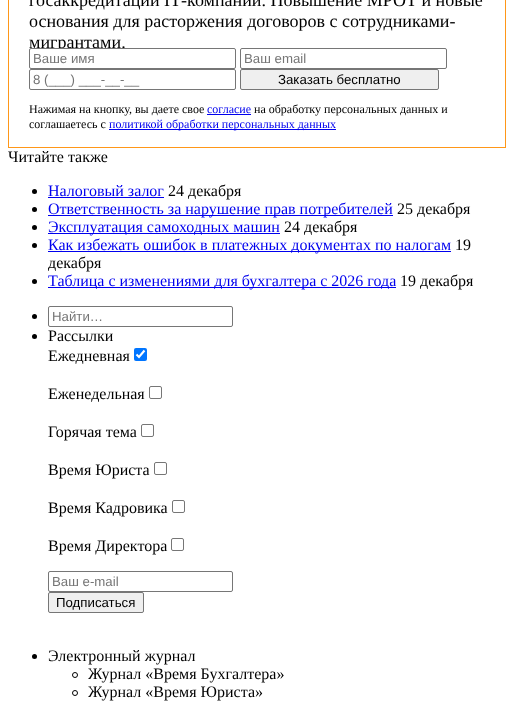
(async () => {
  const canvas = document.querySelector("canvas");
  canvas.width = 514;
  canvas.height = 707;
  const ctx = canvas.getContext("2d");
  ctx.miterLimit = 4;
  ctx.fontKerning = "normal";
  let path;

  ctx.fillStyle = "#ffffff";
  ctx.fillRect(0, 0, 514, 707);
  ctx.strokeStyle = "#ff9718";
  ctx.strokeRect(8.5, -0.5, 497, 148);
  ctx.beginPath();
  ctx.roundRect(240.5, 48.5, 206, 20, 1.5);
  ctx.strokeStyle = "#767676";
  ctx.stroke();
  ctx.beginPath();
  ctx.roundRect(29.5, 69.5, 206, 20, 1.5);
  ctx.stroke();
  ctx.fillStyle = "#efefef";
  ctx.beginPath();
  ctx.roundRect(240.5, 69.5, 198, 20, 1.5);
  ctx.fill();
  ctx.stroke();
  ctx.fillStyle = "#0000ee";
  ctx.fillRect(207, 114, 44, 1);
  ctx.fillRect(109, 129, 227, 1);
  ctx.fillStyle = "#000000";
  ctx.beginPath();
  ctx.arc(34.5, 191.5, 2.5, 0, Math.PI * 2);
  ctx.fill();
  ctx.fillStyle = "#0000ee";
  ctx.fillRect(48, 197, 116, 1);
  ctx.fillStyle = "#000000";
  ctx.beginPath();
  ctx.arc(34.5, 209.5, 2.5, 0, Math.PI * 2);
  ctx.fill();
  ctx.fillStyle = "#0000ee";
  ctx.fillRect(48, 215, 345, 1);
  ctx.fillStyle = "#000000";
  ctx.beginPath();
  ctx.arc(34.5, 227.5, 2.5, 0, Math.PI * 2);
  ctx.fill();
  ctx.fillStyle = "#0000ee";
  ctx.fillRect(48, 233, 232, 1);
  ctx.fillStyle = "#000000";
  ctx.beginPath();
  ctx.arc(34.5, 245.5, 2.5, 0, Math.PI * 2);
  ctx.fill();
  ctx.fillStyle = "#0000ee";
  ctx.fillRect(48, 251, 403, 1);
  ctx.fillStyle = "#000000";
  ctx.beginPath();
  ctx.arc(34.5, 281.5, 2.5, 0, Math.PI * 2);
  ctx.fill();
  ctx.fillStyle = "#0000ee";
  ctx.fillRect(48, 287, 348, 1);
  ctx.fillStyle = "#000000";
  ctx.beginPath();
  ctx.arc(34.5, 316.5, 2.5, 0, Math.PI * 2);
  ctx.fill();
  ctx.beginPath();
  ctx.roundRect(48.5, 306.5, 184, 20, 1.5);
  ctx.stroke();
  ctx.beginPath();
  ctx.arc(34.5, 336.5, 2.5, 0, Math.PI * 2);
  ctx.fill();
  ctx.fillStyle = "#0075ff";
  ctx.beginPath();
  ctx.roundRect(134, 348, 13, 13, 2);
  ctx.fill();
  path = new Path2D("M136.5 354.5L139 357L144.5 350.5");
  ctx.strokeStyle = "#ffffff";
  ctx.lineWidth = 2.1;
  ctx.stroke(path);
  ctx.beginPath();
  ctx.roundRect(149.5, 386.5, 12, 12, 1.5);
  ctx.strokeStyle = "#767676";
  ctx.lineWidth = 1;
  ctx.stroke();
  ctx.beginPath();
  ctx.roundRect(141.5, 424.5, 12, 12, 1.5);
  ctx.stroke();
  ctx.beginPath();
  ctx.roundRect(154.5, 462.5, 12, 12, 1.5);
  ctx.stroke();
  ctx.beginPath();
  ctx.roundRect(172.5, 500.5, 12, 12, 1.5);
  ctx.stroke();
  ctx.beginPath();
  ctx.roundRect(171.5, 538.5, 12, 12, 1.5);
  ctx.stroke();
  ctx.beginPath();
  ctx.roundRect(48.5, 571.5, 184, 20, 1.5);
  ctx.stroke();
  ctx.fillStyle = "#efefef";
  ctx.beginPath();
  ctx.roundRect(48.5, 592.5, 95, 20, 1.5);
  ctx.fill();
  ctx.stroke();
  ctx.fillStyle = "#000000";
  ctx.beginPath();
  ctx.arc(34.5, 656.5, 2.5, 0, Math.PI * 2);
  ctx.fill();
  ctx.beginPath();
  ctx.arc(75, 675, 2.5, 0, Math.PI * 2);
  ctx.strokeStyle = "#000000";
  ctx.stroke();
  ctx.beginPath();
  ctx.arc(75, 693, 2.5, 0, Math.PI * 2);
  ctx.stroke();
  ctx.font = "18px Liberation Serif";
  for (const [text, x, y] of [
    ["госаккредитации IТ-компаний. Повышение МРОТ и новые", 29, 6],
    ["основания для расторжения договоров с сотрудниками-", 29, 27],
    ["мигрантами.", 29, 48],
  ]) {
    ctx.fillText(text, x, y);
  }
  ctx.fillStyle = "#ffffff";
  ctx.beginPath();
  ctx.roundRect(29.5, 48.5, 206, 20, 1.5);
  ctx.fill();
  ctx.strokeStyle = "#767676";
  ctx.stroke();
  ctx.font = "13.25px Liberation Sans";
  ctx.fillStyle = "#757575";
  for (const [text, x, y] of [
    ["Ваше имя", 33, 63],
    ["Ваш email", 244, 63],
    ["8 (___) ___-__-__", 33, 84],
  ]) {
    ctx.fillText(text, x, y);
  }
  ctx.fillStyle = "#000000";
  ctx.fillText("Заказать бесплатно", 278, 84);
  ctx.font = "12px Liberation Serif";
  ctx.fillText("Нажимая на кнопку, вы даете свое", 29, 113);
  ctx.fillStyle = "#0000ee";
  ctx.fillText("согласие", 207, 113);
  ctx.fillStyle = "#000000";
  ctx.fillText("на обработку персональных данных и", 254, 113);
  ctx.fillText("соглашаетесь с", 29, 128);
  ctx.fillStyle = "#0000ee";
  ctx.fillText("политикой обработки персональных данных", 109, 128);
  ctx.font = "16px Liberation Serif";
  ctx.fillStyle = "#000000";
  ctx.fillText("Читайте также", 8, 162);
  ctx.fillStyle = "#0000ee";
  ctx.fillText("Налоговый залог", 48, 196);
  ctx.fillStyle = "#000000";
  ctx.fillText("24 декабря", 168, 196);
  ctx.fillStyle = "#0000ee";
  ctx.fillText("Ответственность за нарушение прав потребителей", 48, 214);
  ctx.fillStyle = "#000000";
  ctx.fillText("25 декабря", 397, 214);
  ctx.fillStyle = "#0000ee";
  ctx.fillText("Эксплуатация самоходных машин", 48, 232);
  ctx.fillStyle = "#000000";
  ctx.fillText("24 декабря", 284, 232);
  ctx.fillStyle = "#0000ee";
  ctx.fillText("Как избежать ошибок в платежных документах по налогам", 48, 250);
  ctx.fillStyle = "#000000";
  ctx.fillText("19", 455, 250);
  ctx.fillText("декабря", 48, 268);
  ctx.fillStyle = "#0000ee";
  ctx.fillText("Таблица с изменениями для бухгалтера с 2026 года", 48, 286);
  ctx.fillStyle = "#000000";
  ctx.fillText("19 декабря", 400, 286);
  ctx.font = "13.25px Liberation Sans";
  ctx.fillStyle = "#757575";
  ctx.fillText("Найти…", 52, 321);
  ctx.font = "16px Liberation Serif";
  ctx.fillStyle = "#000000";
  for (const [text, x, y] of [
    ["Рассылки", 48, 341],
    ["Ежедневная", 48, 361],
    ["Еженедельная", 48, 399],
    ["Горячая тема", 48, 437],
    ["Время Юриста", 48, 475],
    ["Время Кадровика", 48, 513],
    ["Время Директора", 48, 551],
  ]) {
    ctx.fillText(text, x, y);
  }
  ctx.font = "13.25px Liberation Sans";
  ctx.fillStyle = "#757575";
  ctx.fillText("Ваш e-mail", 52, 586);
  ctx.fillStyle = "#000000";
  ctx.fillText("Подписаться", 56, 607);
  ctx.font = "16px Liberation Serif";
  for (const [text, x, y] of [
    ["Электронный журнал", 48, 661],
    ["Журнал «Время Бухгалтера»", 88, 679],
    ["Журнал «Время Юриста»", 88, 697],
  ]) {
    ctx.fillText(text, x, y);
  }
})();
